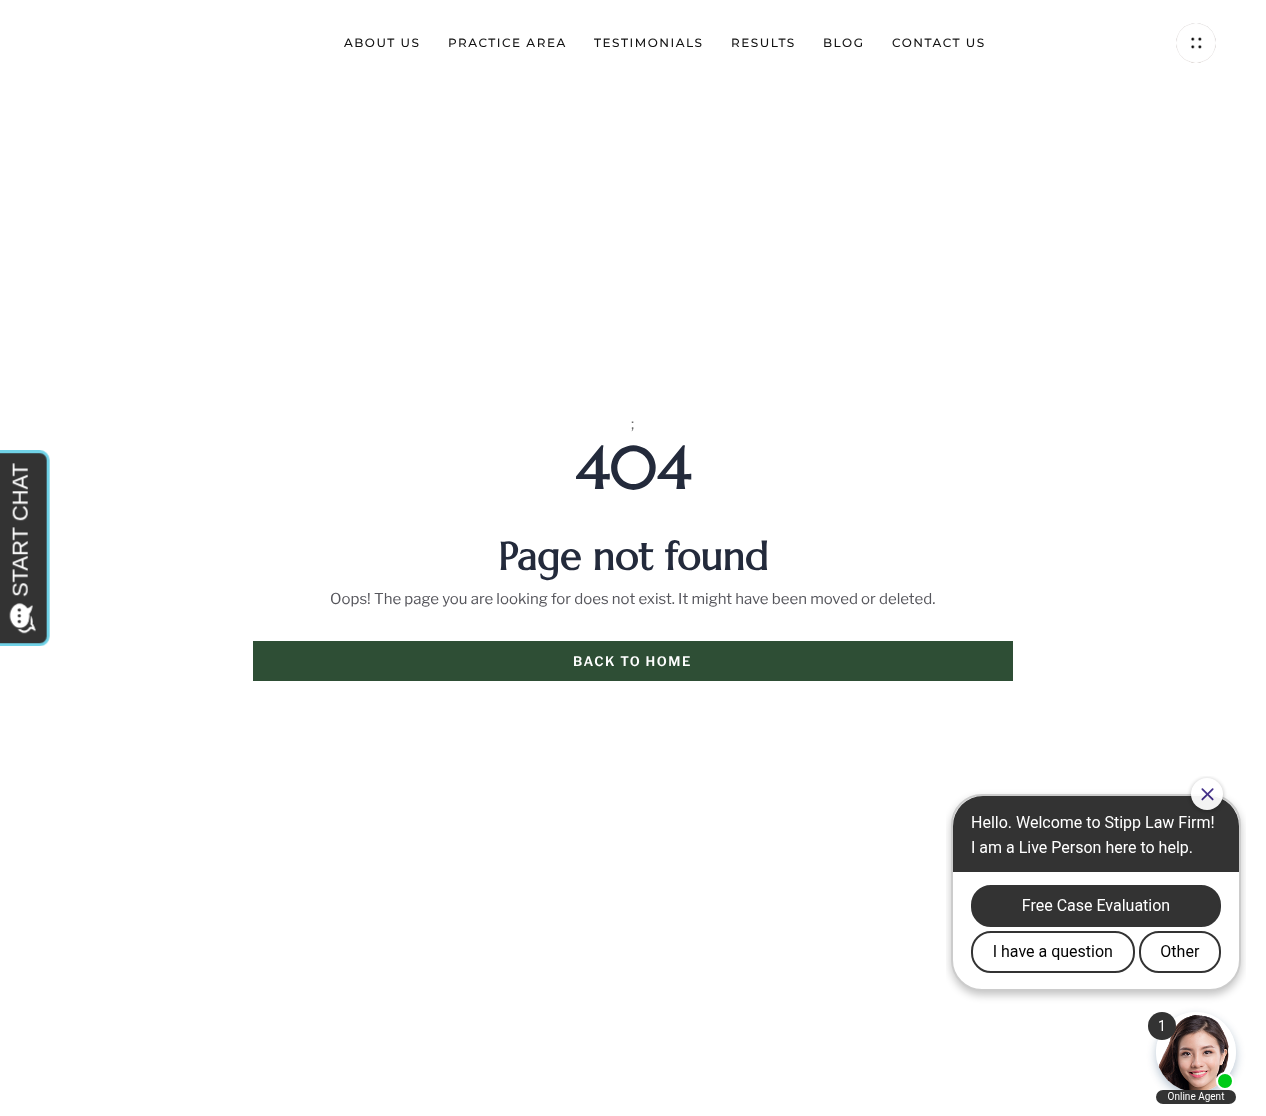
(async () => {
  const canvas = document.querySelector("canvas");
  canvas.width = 1266;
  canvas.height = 1116;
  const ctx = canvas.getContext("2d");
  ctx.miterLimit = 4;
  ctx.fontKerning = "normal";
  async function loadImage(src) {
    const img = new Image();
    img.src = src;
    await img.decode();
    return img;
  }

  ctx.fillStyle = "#ffffff";
  ctx.fillRect(0, 0, 1266, 1116);
  ctx.drawImage(await loadImage("img/1.png"), 0, 450, 50, 196);
  ctx.drawImage(await loadImage("img/2.png"), 1176, 23, 40, 40);
  ctx.fillStyle = "#2e4e35";
  ctx.fillRect(253, 641, 760, 40);
  ctx.drawImage(await loadImage("img/3.png"), 946, 776, 300, 328);
  ctx.letterSpacing = "1.5px";
  ctx.font = "500 12px Montserrat";
  ctx.fillStyle = "#121212";
  for (const [text, x, y] of [
    ["ABOUT US", 344, 47],
    ["PRACTICE AREA", 448, 47],
    ["TESTIMONIALS", 594, 47],
    ["RESULTS", 731, 47],
    ["BLOG", 823, 47],
    ["CONTACT US", 892, 47],
  ]) {
    ctx.fillText(text, x, y);
  }
  ctx.letterSpacing = "0px";
  ctx.font = "15px Libre Franklin";
  ctx.fillStyle = "#6a6a6a";
  ctx.fillText(";", 631, 429);
  ctx.font = "bold 59px Marcellus";
  ctx.fillStyle = "#232a3b";
  ctx.fillText("404", 575, 489);
  ctx.font = "bold 39px Marcellus";
  ctx.fillText("Page not found", 498, 570);
  ctx.font = "15px Libre Franklin";
  ctx.fillStyle = "#56565c";
  ctx.fillText("Oops! The page you are looking for does not exist. It might have been moved or deleted.", 330, 604);
  ctx.letterSpacing = "1.5px";
  ctx.font = "600 13px Libre Franklin";
  ctx.fillStyle = "#ffffff";
  ctx.fillText("BACK TO HOME", 573, 666);
})();
